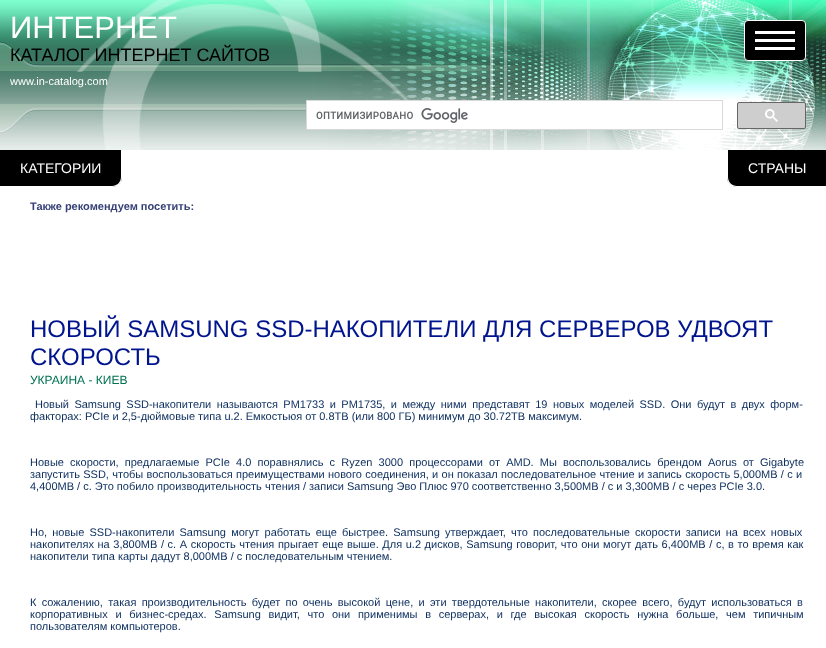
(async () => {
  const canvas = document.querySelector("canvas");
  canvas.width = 826;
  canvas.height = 648;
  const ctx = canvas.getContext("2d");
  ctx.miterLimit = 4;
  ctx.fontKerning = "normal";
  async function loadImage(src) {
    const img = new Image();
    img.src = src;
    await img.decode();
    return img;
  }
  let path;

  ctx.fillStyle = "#ffffff";
  ctx.fillRect(0, 0, 826, 648);
  ctx.drawImage(await loadImage("img/1.png"), 0, 0, 826, 150);
  ctx.fillStyle = "#000000";
  ctx.beginPath();
  ctx.roundRect(744.5, 20.5, 61, 40, 3.5);
  ctx.fill();
  ctx.strokeStyle = "#ffffff";
  ctx.stroke();
  for (const [x, y, w, h, color] of [
    [755, 31, 40, 3, "#ffffff"],
    [755, 39, 40, 3, "#ffffff"],
    [755, 47, 40, 3, "#ffffff"],
    [307, 101, 371, 28, "#ffffff"],
  ]) {
    ctx.fillStyle = color;
    ctx.fillRect(x, y, w, h);
  }
  ctx.strokeStyle = "#d9d9d9";
  ctx.strokeRect(306.5, 100.5, 416, 29);
  ctx.drawImage(await loadImage("img/2.png"), 316, 108, 152, 15);
  ctx.fillStyle = "#cecece";
  ctx.beginPath();
  ctx.roundRect(737.5, 102.5, 68, 26, 1.5);
  ctx.fill();
  ctx.strokeStyle = "#666666";
  ctx.stroke();
  ctx.drawImage(await loadImage("img/3.png"), 765, 109, 13, 13);
  ctx.fillStyle = "#000000";
  ctx.beginPath();
  ctx.roundRect(0, 150, 122, 37, [0, 0, 10, 0]);
  ctx.fill();
  ctx.fillStyle = "#ffffff";
  path = new Path2D("M0 150H122V177C122 183 118 187 112 187H0ZM0 150H121V177C121 182 117 186 112 186H0Z");
  ctx.fill(path, "evenodd");
  ctx.fillStyle = "#000000";
  ctx.beginPath();
  ctx.roundRect(727, 150, 99, 37, [0, 0, 0, 10]);
  ctx.fill();
  ctx.fillStyle = "#ffffff";
  path = new Path2D("M727 150H826V187H737C731 187 727 183 727 177ZM728 150H826V186H737C732 186 728 182 728 177Z");
  ctx.fill(path, "evenodd");
  ctx.font = "31px Liberation Sans";
  ctx.fillText("ИНТЕРНЕТ", 10, 38);
  ctx.font = "18px Liberation Sans";
  ctx.fillStyle = "#000000";
  ctx.fillText("КАТАЛОГ ИНТЕРНЕТ САЙТОВ", 10, 61);
  ctx.font = "11px Liberation Sans";
  ctx.fillStyle = "#ffffff";
  ctx.fillText("www.in-catalog.com", 10, 85);
  ctx.font = "14px Liberation Sans";
  ctx.fillText("КАТЕГОРИИ", 20, 173);
  ctx.fillText("СТРАНЫ", 748, 173);
  ctx.font = "bold 11px Liberation Sans";
  ctx.fillStyle = "#374076";
  ctx.fillText("Также рекомендуем посетить:", 30, 210);
  ctx.font = "24px Liberation Sans";
  ctx.fillStyle = "#00148d";
  ctx.fillText("НОВЫЙ SAMSUNG SSD-НАКОПИТЕЛИ ДЛЯ СЕРВЕРОВ УДВОЯТ", 30, 337);
  ctx.fillText("СКОРОСТЬ", 30, 365);
  ctx.font = "12px Liberation Sans";
  ctx.fillStyle = "#007153";
  ctx.fillText("УКРАИНА - КИЕВ", 30, 384);
  ctx.wordSpacing = "2.4px";
  ctx.font = "11px Liberation Sans";
  ctx.fillStyle = "#0a2c5c";
  ctx.fillText("Новый Samsung SSD-накопители называются PM1733 и PM1735, и между ними представят 19 новых моделей SSD. Они будут в двух форм-", 35, 408);
  ctx.wordSpacing = "0px";
  ctx.fillText("факторах: PCIe и 2,5-дюймовые типа u.2. Емкостьюя от 0.8TB (или 800 ГБ) минимум до 30.72TB максимум.", 30, 420);
  ctx.wordSpacing = "3.1px";
  ctx.fillText("Новые скорости, предлагаемые PCIe 4.0 поравнялись с Ryzen 3000 процессорами от AMD. Мы воспользовались брендом Aorus от Gigabyte", 30, 466);
  ctx.wordSpacing = "0.25px";
  ctx.fillText("запустить SSD, чтобы воспользоваться преимуществами нового соединения, и он показал последовательное чтение и запись скорость 5,000MB / с и", 30, 478);
  ctx.wordSpacing = "0px";
  ctx.fillText("4,400MB / с. Это побило производительность чтения / записи Samsung Эво Плюс 970 соответственно 3,500MB / с и 3,300MB / с через PCIe 3.0.", 30, 490);
  ctx.wordSpacing = "2.1px";
  ctx.fillText("Но, новые SSD-накопители Samsung могут работать еще быстрее. Samsung утверждает, что последовательные скорости записи на всех новых", 30, 536);
  ctx.wordSpacing = "0.55px";
  ctx.fillText("накопителях на 3,800MB / с. А скорость чтения прыгает еще выше. Для u.2 дисков, Samsung говорит, что они могут дать 6,400MB / с, в то время как", 30, 548);
  ctx.wordSpacing = "0px";
  ctx.fillText("накопители типа карты дадут 8,000MB / с последовательным чтением.", 30, 560);
  ctx.wordSpacing = "2.25px";
  ctx.fillText("К сожалению, такая производительность будет по очень высокой цене, и эти твердотельные накопители, скорее всего, будут использоваться в", 30, 606);
  ctx.wordSpacing = "4.6px";
  ctx.fillText("корпоративных и бизнес-средах. Samsung видит, что они применимы в серверах, и где высокая скорость нужна больше, чем типичным", 30, 618);
  ctx.wordSpacing = "0px";
  ctx.fillText("пользователям компьютеров.", 30, 630);
})();
